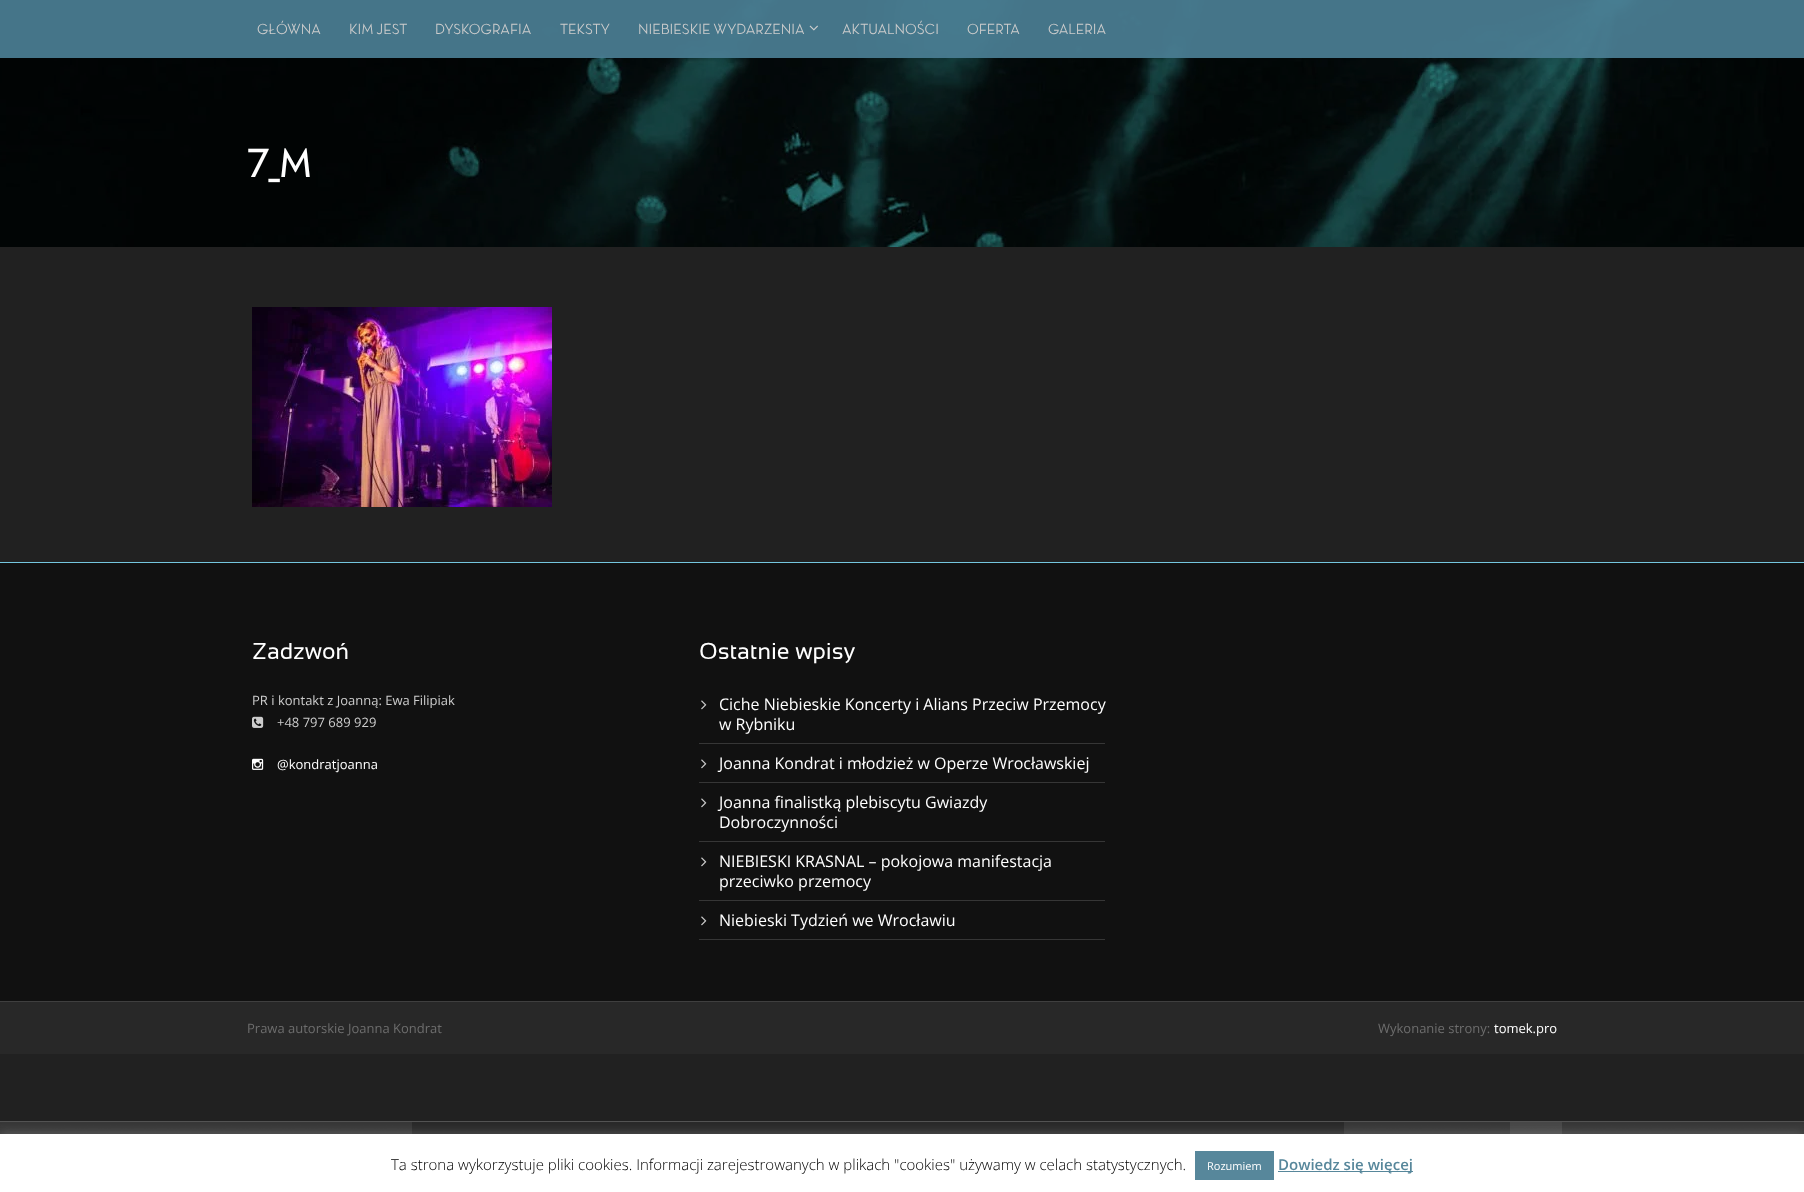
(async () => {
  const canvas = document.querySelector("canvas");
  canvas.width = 1804;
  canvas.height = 1192;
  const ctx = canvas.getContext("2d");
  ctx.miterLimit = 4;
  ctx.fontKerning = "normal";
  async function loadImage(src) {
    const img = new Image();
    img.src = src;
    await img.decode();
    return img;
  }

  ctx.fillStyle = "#212121";
  ctx.fillRect(0, 0, 1804, 1192);
  ctx.drawImage(await loadImage("img/2.png"), 0, 0, 1804, 247);
  ctx.fillStyle = "rgba(74, 126, 147, 0.93)";
  ctx.fillRect(0, 0, 1804, 58);
  ctx.drawImage(await loadImage("img/1.png"), 809, 25, 9, 6);
  ctx.drawImage(await loadImage("img/3.png"), 252, 307, 300, 200);
  ctx.fillStyle = "#111111";
  ctx.fillRect(0, 563, 1804, 438);
  ctx.fillStyle = "#74c6de";
  ctx.fillRect(0, 562, 1804, 1);
  ctx.drawImage(await loadImage("img/4.png"), 252, 716, 12, 12);
  ctx.drawImage(await loadImage("img/5.png"), 252, 758, 12, 12);
  ctx.fillStyle = "#363636";
  ctx.fillRect(699, 743, 406, 1);
  ctx.drawImage(await loadImage("img/6.png"), 701, 700, 6, 10);
  ctx.fillRect(699, 782, 406, 1);
  ctx.drawImage(await loadImage("img/6.png"), 701, 759, 6, 10);
  ctx.fillRect(699, 841, 406, 1);
  ctx.drawImage(await loadImage("img/6.png"), 701, 798, 6, 10);
  ctx.fillRect(699, 900, 406, 1);
  ctx.drawImage(await loadImage("img/6.png"), 701, 857, 6, 10);
  ctx.fillRect(699, 939, 406, 1);
  ctx.drawImage(await loadImage("img/6.png"), 701, 916, 6, 10);
  ctx.fillStyle = "#282828";
  ctx.fillRect(0, 1002, 1804, 52);
  ctx.fillStyle = "#3f3f3f";
  ctx.fillRect(0, 1001, 1804, 1);
  ctx.drawImage(await loadImage("img/7.png"), 0, 1122, 1804, 12);
  for (const [x, y, w, h, color] of [
    [0, 1121, 1804, 1, "#535353"],
    [412, 1122, 784, 12, "rgba(0, 0, 0, 0.25)"],
    [1196, 1122, 148, 12, "rgba(0, 0, 0, 0.25)"],
    [1510, 1122, 52, 12, "rgba(216, 216, 216, 0.1)"],
  ]) {
    ctx.fillStyle = color;
    ctx.fillRect(x, y, w, h);
  }
  ctx.fillStyle = "rgba(172, 171, 171, 0.3)";
  ctx.filter = "blur(5px)";
  ctx.beginPath();
  ctx.rect(0, 1133, 1804, 58);
  ctx.fill();
  ctx.filter = "none";
  for (const [x, y, w, h, color] of [
    [0, 1134, 1804, 58, "#ffffff"],
    [1195, 1151, 79, 29, "#57879b"],
    [1278, 1171, 135, 1, "#57879b"],
  ]) {
    ctx.fillStyle = color;
    ctx.fillRect(x, y, w, h);
  }
  ctx.font = "500 15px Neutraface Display";
  ctx.fillStyle = "#cccccc";
  for (const [text, x, y] of [
    ["GŁÓWNA", 257, 34],
    ["KIM JEST", 349, 34],
    ["DYSKOGRAFIA", 435, 34],
    ["TEKSTY", 560, 34],
    ["NIEBIESKIE WYDARZENIA", 638, 34],
    ["AKTUALNOŚCI", 842, 34],
    ["OFERTA", 967, 34],
    ["GALERIA", 1048, 34],
  ]) {
    ctx.fillText(text, x, y);
  }
  ctx.font = "bold 40px Neutraface Display";
  ctx.fillStyle = "#ffffff";
  ctx.fillText("7_M", 247, 177);
  ctx.font = "23px Sansation";
  ctx.fillText("Zadzwoń", 252, 659);
  ctx.font = "13px Open Sans";
  ctx.fillStyle = "#cccccc";
  ctx.fillText("PR i kontakt z Joanną: Ewa Filipiak", 252, 705);
  ctx.fillText("+48 797 689 929", 277, 727);
  ctx.fillStyle = "#ffffff";
  ctx.fillText("@kondratjoanna", 277, 769);
  ctx.font = "23px Sansation";
  ctx.fillText("Ostatnie wpisy", 699, 659);
  ctx.font = "16px Open Sans";
  for (const [text, x, y] of [
    ["Ciche Niebieskie Koncerty i Alians Przeciw Przemocy", 719, 710],
    ["w Rybniku", 719, 730],
    ["Joanna Kondrat i młodzież w Operze Wrocławskiej", 719, 769],
    ["Joanna finalistką plebiscytu Gwiazdy", 719, 808],
    ["Dobroczynności", 719, 828],
    ["NIEBIESKI KRASNAL – pokojowa manifestacja", 719, 867],
    ["przeciwko przemocy", 719, 887],
    ["Niebieski Tydzień we Wrocławiu", 719, 926],
  ]) {
    ctx.fillText(text, x, y);
  }
  ctx.font = "13px Open Sans";
  ctx.fillStyle = "#6d6d6d";
  ctx.fillText("Prawa autorskie Joanna Kondrat", 247, 1033);
  ctx.fillText("Wykonanie strony:", 1378, 1033);
  ctx.fillStyle = "#ffffff";
  ctx.fillText("tomek.pro", 1494, 1033);
  ctx.font = "300 15px Open Sans";
  ctx.fillStyle = "#000000";
  ctx.fillText("Ta strona wykorzystuje pliki cookies. Informacji zarejestrowanych w plikach \"cookies\" używamy w celach statystycznych.", 391, 1170);
  ctx.font = "11px Open Sans";
  ctx.fillStyle = "#ffffff";
  ctx.fillText("Rozumiem", 1207, 1170);
  ctx.font = "600 15px Open Sans";
  ctx.fillStyle = "#57879b";
  ctx.fillText("Dowiedz się więcej", 1278, 1170);
})();
